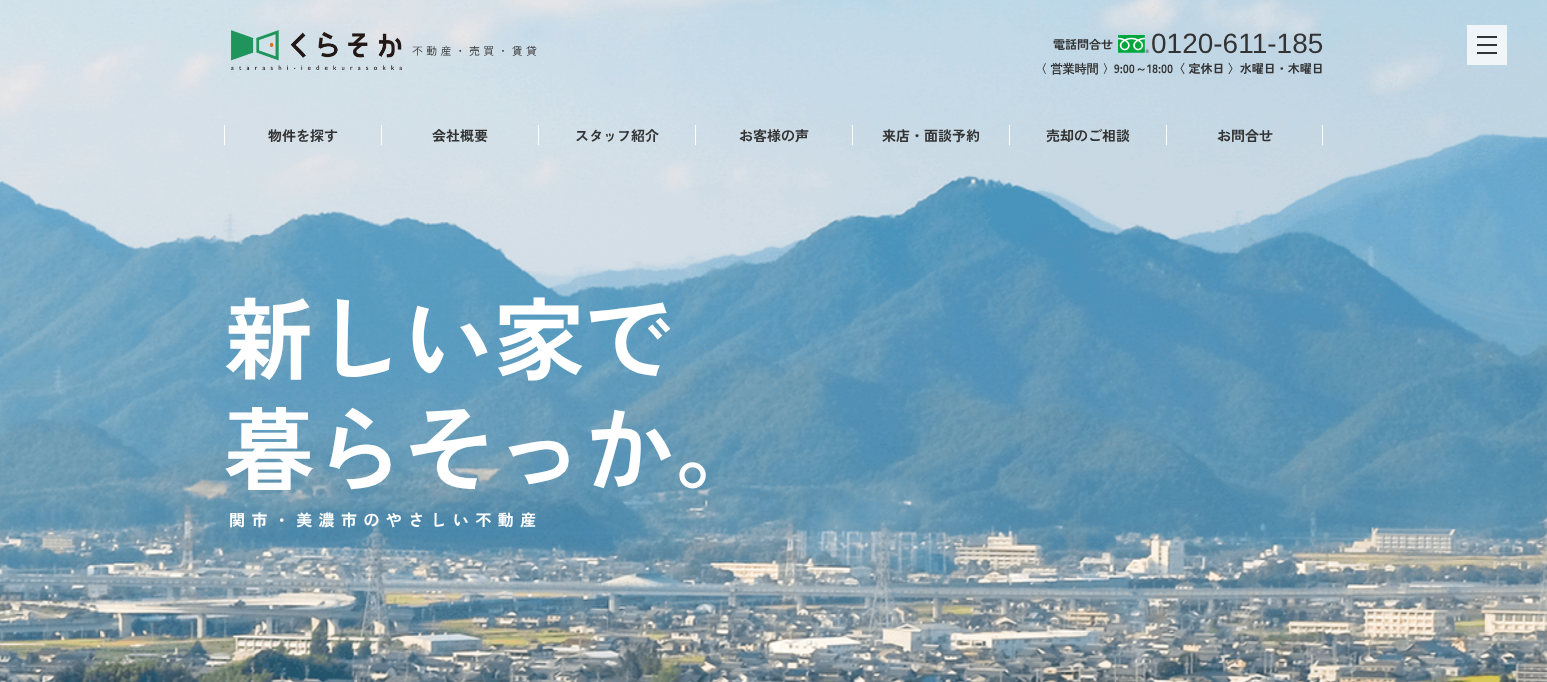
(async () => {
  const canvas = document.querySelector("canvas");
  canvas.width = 1547;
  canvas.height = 682;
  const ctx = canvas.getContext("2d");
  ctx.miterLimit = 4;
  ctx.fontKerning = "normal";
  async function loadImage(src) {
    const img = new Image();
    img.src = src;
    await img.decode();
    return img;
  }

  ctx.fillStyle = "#ffffff";
  ctx.fillRect(0, 0, 1547, 682);
  ctx.drawImage(await loadImage("img/3.png"), 0, 0, 1547, 682);
  ctx.drawImage(await loadImage("img/1.png"), 231, 30, 171, 40);
  ctx.drawImage(await loadImage("img/2.png"), 1118, 35, 31, 18);
  for (const [x, y, w, h, color] of [
    [1467, 25, 40, 40, "rgba(252, 252, 252, 0.8)"],
    [1477, 36, 20, 2, "#333333"],
    [1477, 44, 20, 2, "#333333"],
    [1477, 52, 20, 2, "#333333"],
    [224, 125, 1, 20, "#ffffff"],
    [381, 125, 1, 20, "#ffffff"],
    [538, 125, 1, 20, "#ffffff"],
    [695, 125, 1, 20, "#ffffff"],
    [852, 125, 1, 20, "#ffffff"],
    [1009, 125, 1, 20, "#ffffff"],
    [1322, 125, 1, 20, "#ffffff"],
    [1166, 125, 1, 20, "#ffffff"],
  ]) {
    ctx.fillStyle = color;
    ctx.fillRect(x, y, w, h);
  }
  ctx.letterSpacing = "3.25px";
  ctx.font = "11px Zen Kaku Gothic Antique";
  ctx.fillStyle = "#333333";
  ctx.fillText("不動産・売買・賃貸", 412, 55);
  ctx.letterSpacing = "0px";
  ctx.font = "bold 12px Zen Kaku Gothic Antique";
  ctx.fillText("電話問合せ", 1053, 49);
  ctx.font = "28px Liberation Sans";
  ctx.fillText("0120-611-185", 1151, 53);
  ctx.font = "bold 12px WenQuanYi Zen Hei";
  ctx.fillText("〈 営業時間 〉", 1035, 73);
  ctx.font = "bold 12px Zen Kaku Gothic Antique";
  ctx.fillText("9:00", 1114, 73);
  ctx.font = "bold 12px WenQuanYi Zen Hei";
  ctx.fillText("～", 1135, 73);
  ctx.font = "bold 12px Zen Kaku Gothic Antique";
  ctx.fillText("18:00〈 定休日 〉水曜日・木曜日", 1147, 73);
  ctx.font = "bold 14px Zen Kaku Gothic Antique";
  for (const [text, x, y] of [
    ["物件を探す", 268, 141],
    ["会社概要", 432, 141],
    ["スタッフ紹介", 575, 141],
    ["お客様の声", 739, 141],
    ["来店・面談予約", 882, 141],
    ["売却のご相談", 1046, 141],
    ["お問合せ", 1217, 141],
  ]) {
    ctx.fillText(text, x, y);
  }
  ctx.font = "bold 90px Zen Kaku Gothic Antique";
  ctx.fillStyle = "#ffffff";
  ctx.fillText("新しい家で", 224, 373);
  ctx.fillText("暮らそっか。", 224, 483);
  ctx.letterSpacing = "6.4px";
  ctx.font = "bold 16px Zen Kaku Gothic Antique";
  ctx.fillText("関市・美濃市のやさしい不動産", 229, 526);
})();
